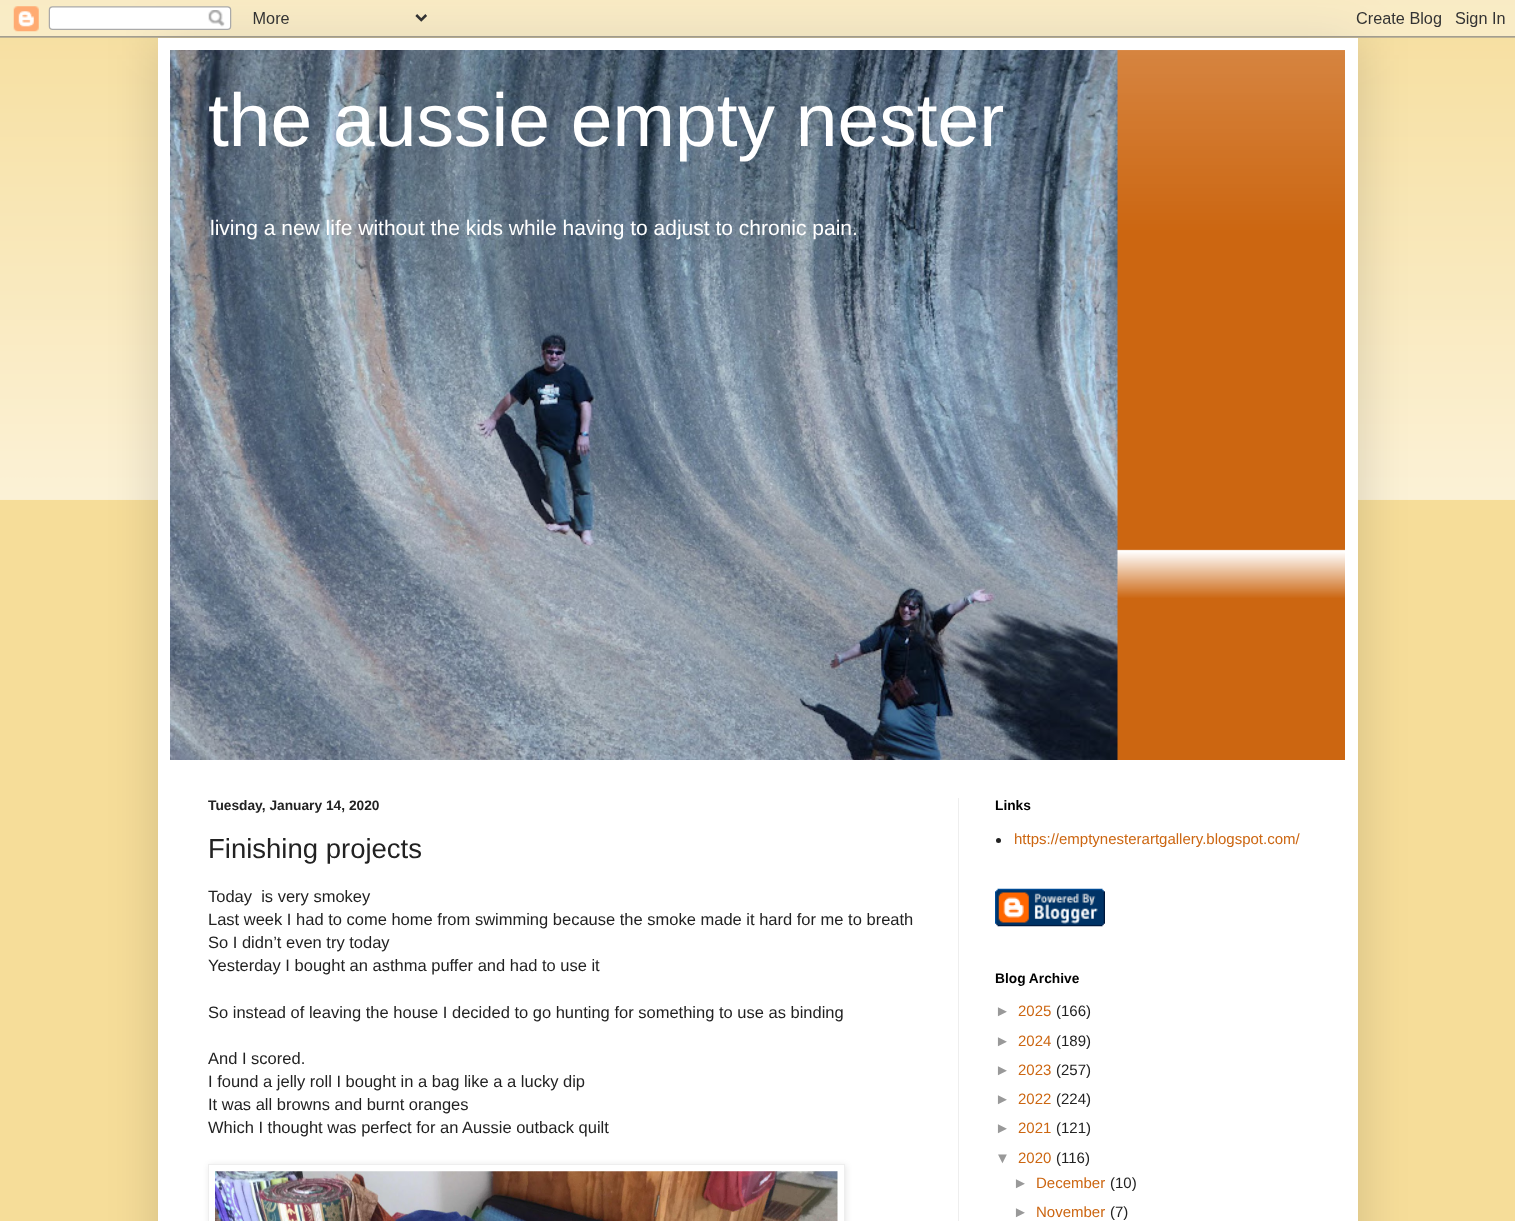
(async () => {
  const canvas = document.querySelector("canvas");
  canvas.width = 1515;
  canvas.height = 1221;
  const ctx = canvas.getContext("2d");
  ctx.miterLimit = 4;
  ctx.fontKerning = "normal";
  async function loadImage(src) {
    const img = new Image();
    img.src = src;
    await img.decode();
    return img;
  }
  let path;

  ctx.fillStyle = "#f6dd99";
  ctx.fillRect(0, 0, 1515, 1221);
  ctx.drawImage(await loadImage("img/1.png"), 0, 0, 1515, 500);
  ctx.fillStyle = "rgba(0, 0, 0, 0.15)";
  ctx.filter = "blur(25px)";
  ctx.beginPath();
  ctx.rect(158, 38, 1200, 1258);
  ctx.fill();
  ctx.filter = "none";
  ctx.drawImage(await loadImage("img/2.png"), 0, 0, 1515, 38);
  ctx.fillStyle = "#ffffff";
  ctx.fillRect(158, 38, 1200, 1183);
  ctx.fillStyle = "#cc6611";
  ctx.fillRect(1117, 50, 228, 710);
  ctx.drawImage(await loadImage("img/3.png"), 1117, 50, 228, 548);
  ctx.drawImage(await loadImage("img/4.png"), 170, 50, 948, 710);
  ctx.fillStyle = "#eeeeee";
  ctx.fillRect(958, 798, 1, 423);
  ctx.save();
  path = new Path2D("M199 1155H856V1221H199ZM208 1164H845V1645H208Z");
  ctx.clip(path, "evenodd");
  ctx.fillStyle = "rgba(0, 0, 0, 0.1)";
  ctx.filter = "blur(3px)";
  ctx.beginPath();
  ctx.rect(209, 1165, 637, 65);
  ctx.fill();
  ctx.filter = "none";
  ctx.restore();
  ctx.strokeStyle = "#eeeeee";
  ctx.strokeRect(208.5, 1164.5, 636, 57);
  ctx.drawImage(await loadImage("img/5.png"), 215, 1171, 623, 50);
  ctx.fillStyle = "#222222";
  ctx.beginPath();
  ctx.arc(998.5, 840.5, 2.5, 0, Math.PI * 2);
  ctx.fill();
  ctx.drawImage(await loadImage("img/6.png"), 995, 888, 110, 39);
  ctx.font = "75px Liberation Sans";
  ctx.fillStyle = "#ffffff";
  ctx.fillText("the aussie empty nester", 208, 146);
  ctx.font = "21px Liberation Sans";
  ctx.fillText("living a new life without the kids while having to adjust to chronic pain.", 210, 235);
  ctx.font = "bold 13.75px Liberation Sans";
  ctx.fillStyle = "#222222";
  ctx.fillText("Tuesday, January 14, 2020", 208, 810);
  ctx.font = "27.5px Liberation Sans";
  ctx.fillText("Finishing projects", 208, 858);
  ctx.font = "16.5px Liberation Sans";
  for (const [text, x, y] of [
    ["Today  is very smokey", 208, 902],
    ["Last week I had to come home from swimming because the smoke made it hard for me to breath", 208, 925],
    ["So I didn’t even try today", 208, 948],
    ["Yesterday I bought an asthma puffer and had to use it", 208, 971],
    ["So instead of leaving the house I decided to go hunting for something to use as binding", 208, 1018],
    ["And I scored.", 208, 1064],
    ["I found a jelly roll I bought in a bag like a a lucky dip", 208, 1087],
    ["It was all browns and burnt oranges", 208, 1110],
    ["Which I thought was perfect for an Aussie outback quilt", 208, 1133],
  ]) {
    ctx.fillText(text, x, y);
  }
  ctx.font = "bold 13.75px Liberation Sans";
  ctx.fillStyle = "#000000";
  ctx.fillText("Links", 995, 810);
  ctx.font = "15px Liberation Sans";
  ctx.fillStyle = "#cc6611";
  ctx.fillText("https://emptynesterartgallery.blogspot.com/", 1014, 844);
  ctx.font = "bold 13.75px Liberation Sans";
  ctx.fillStyle = "#000000";
  ctx.fillText("Blog Archive", 995, 983);
  ctx.font = "15px Liberation Sans";
  ctx.fillStyle = "#999999";
  ctx.fillText("►", 995, 1016);
  ctx.fillStyle = "#cc6611";
  ctx.fillText("2025", 1018, 1016);
  ctx.fillStyle = "#222222";
  ctx.fillText("(166)", 1056, 1016);
  ctx.fillStyle = "#999999";
  ctx.fillText("►", 995, 1046);
  ctx.fillStyle = "#cc6611";
  ctx.fillText("2024", 1018, 1046);
  ctx.fillStyle = "#222222";
  ctx.fillText("(189)", 1056, 1046);
  ctx.fillStyle = "#999999";
  ctx.fillText("►", 995, 1075);
  ctx.fillStyle = "#cc6611";
  ctx.fillText("2023", 1018, 1075);
  ctx.fillStyle = "#222222";
  ctx.fillText("(257)", 1056, 1075);
  ctx.fillStyle = "#999999";
  ctx.fillText("►", 995, 1104);
  ctx.fillStyle = "#cc6611";
  ctx.fillText("2022", 1018, 1104);
  ctx.fillStyle = "#222222";
  ctx.fillText("(224)", 1056, 1104);
  ctx.fillStyle = "#999999";
  ctx.fillText("►", 995, 1133);
  ctx.fillStyle = "#cc6611";
  ctx.fillText("2021", 1018, 1133);
  ctx.fillStyle = "#222222";
  ctx.fillText("(121)", 1056, 1133);
  ctx.fillStyle = "#999999";
  ctx.fillText("▼", 995, 1163);
  ctx.fillStyle = "#cc6611";
  ctx.fillText("2020", 1018, 1163);
  ctx.fillStyle = "#222222";
  ctx.fillText("(116)", 1056, 1163);
  ctx.fillStyle = "#999999";
  ctx.fillText("►", 1013, 1188);
  ctx.fillStyle = "#cc6611";
  ctx.fillText("December", 1036, 1188);
  ctx.fillStyle = "#222222";
  ctx.fillText("(10)", 1110, 1188);
  ctx.fillStyle = "#999999";
  ctx.fillText("►", 1013, 1217);
  ctx.fillStyle = "#cc6611";
  ctx.fillText("November", 1036, 1217);
  ctx.fillStyle = "#222222";
  ctx.fillText("(7)", 1110, 1217);
})();
